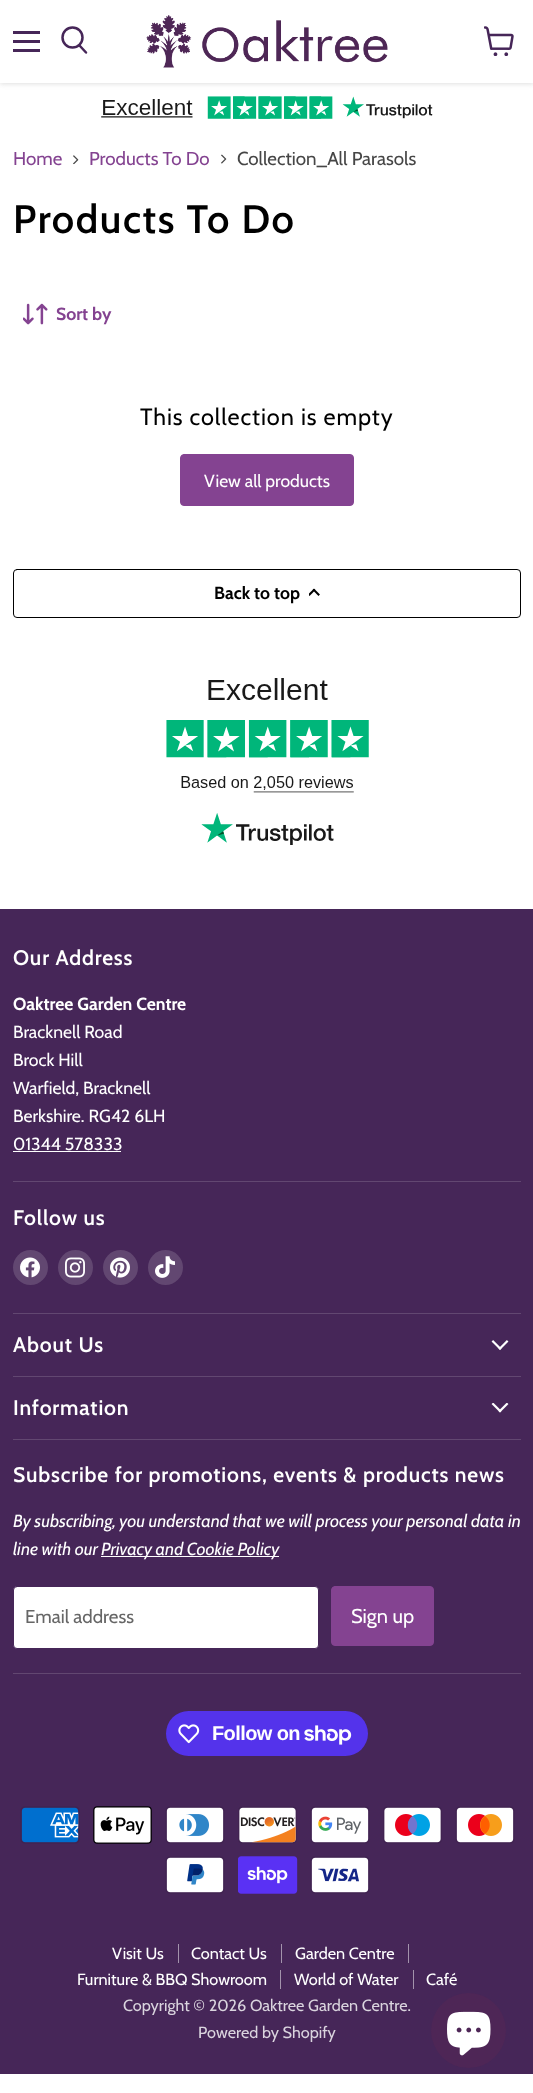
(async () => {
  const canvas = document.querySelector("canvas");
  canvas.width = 533;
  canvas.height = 2093;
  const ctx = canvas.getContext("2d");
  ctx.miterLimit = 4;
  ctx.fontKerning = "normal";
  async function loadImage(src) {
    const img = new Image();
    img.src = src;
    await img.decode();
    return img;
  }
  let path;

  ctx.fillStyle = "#ffffff";
  ctx.fillRect(0, 0, 533, 2093);
  ctx.fillStyle = "rgba(128, 128, 128, 0.25)";
  ctx.filter = "blur(2.5px)";
  ctx.beginPath();
  ctx.rect(0, 1, 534, 83);
  ctx.fill();
  ctx.filter = "none";
  for (const [x, y, w, h, color] of [
    [0, 0, 533, 83, "#ffffff"],
    [13, 31, 27, 3, "#462658"],
    [13, 40, 27, 3, "#462658"],
    [13, 49, 27, 3, "#462658"],
  ]) {
    ctx.fillStyle = color;
    ctx.fillRect(x, y, w, h);
  }
  path = new Path2D("M86 52.5L79.5 45.5");
  ctx.strokeStyle = "#462658";
  ctx.lineWidth = 2.5;
  ctx.lineCap = "round";
  ctx.stroke(path);
  ctx.beginPath();
  ctx.arc(72.5, 37.5, 10, 0, Math.PI * 2);
  ctx.stroke();
  ctx.drawImage(await loadImage("img/1.png"), 146, 15, 242, 53);
  ctx.drawImage(await loadImage("img/2.png"), 484, 26, 30, 30);
  ctx.drawImage(await loadImage("img/3.png"), 101, 96, 332, 23);
  ctx.drawImage(await loadImage("img/4.png"), 73, 155, 6, 10);
  ctx.drawImage(await loadImage("img/5.png"), 221, 154, 6, 10);
  ctx.drawImage(await loadImage("img/6.png"), 23, 303, 25, 22);
  ctx.fillStyle = "#844391";
  ctx.beginPath();
  ctx.roundRect(180.5, 454.5, 173, 51, 3.5);
  ctx.fill();
  ctx.strokeStyle = "#844391";
  ctx.lineWidth = 1;
  ctx.stroke();
  ctx.beginPath();
  ctx.roundRect(13.5, 569.5, 507, 48, 3.5);
  ctx.strokeStyle = "#000000";
  ctx.stroke();
  ctx.save();
  ctx.beginPath();
  ctx.rect(309, 589, 12, 9);
  ctx.clip();
  path = new Path2D("M314 590L309.5 594.5");
  ctx.lineWidth = 2;
  ctx.lineCap = "square";
  ctx.stroke(path);
  ctx.restore();
  path = new Path2D("M314 590L318.5 594.5");
  ctx.lineWidth = 2;
  ctx.lineCap = "square";
  ctx.stroke(path);
  ctx.drawImage(await loadImage("img/7.png"), 166, 678, 203, 167);
  for (const [x, y, w, h, color] of [
    [0, 909, 533, 1165, "#462658"],
    [13, 1181, 508, 1, "#624771"],
    [13, 1151, 108, 1, "#ffffff"],
    [13, 1313, 508, 1, "#624771"],
  ]) {
    ctx.fillStyle = color;
    ctx.fillRect(x, y, w, h);
  }
  ctx.beginPath();
  ctx.arc(30.5, 1267.5, 17.5, 0, Math.PI * 2);
  ctx.fill();
  ctx.drawImage(await loadImage("img/8.png"), 20, 1257, 20, 21);
  ctx.beginPath();
  ctx.arc(75.5, 1267.5, 17.5, 0, Math.PI * 2);
  ctx.fill();
  ctx.drawImage(await loadImage("img/9.png"), 65, 1257, 20, 21);
  ctx.beginPath();
  ctx.arc(120.5, 1267.5, 17.5, 0, Math.PI * 2);
  ctx.fill();
  ctx.drawImage(await loadImage("img/10.png"), 110, 1257, 20, 21);
  ctx.beginPath();
  ctx.arc(165.5, 1267.5, 17.5, 0, Math.PI * 2);
  ctx.fill();
  ctx.drawImage(await loadImage("img/11.png"), 155, 1256, 20, 22);
  ctx.fillRect(13, 1376, 508, 1);
  ctx.drawImage(await loadImage("img/12.png"), 491, 1340, 18, 10);
  ctx.fillRect(13, 1439, 508, 1);
  ctx.drawImage(await loadImage("img/13.png"), 491, 1403, 18, 10);
  ctx.fillRect(13, 1673, 508, 1);
  ctx.fillStyle = "#ffffff";
  ctx.fillRect(101, 1556, 178, 1);
  ctx.beginPath();
  ctx.roundRect(13.5, 1586.5, 305, 62, 3.5);
  ctx.fill();
  ctx.strokeStyle = "#462658";
  ctx.lineWidth = 1;
  ctx.stroke();
  ctx.fillStyle = "#844391";
  ctx.beginPath();
  ctx.roundRect(331.5, 1586.5, 102, 59, 3.5);
  ctx.fill();
  ctx.strokeStyle = "#844391";
  ctx.stroke();
  ctx.fillStyle = "#5433eb";
  ctx.beginPath();
  ctx.roundRect(166, 1711, 202, 45, 22.5);
  ctx.fill();
  ctx.drawImage(await loadImage("img/14.png"), 178, 1724, 22, 20);
  ctx.drawImage(await loadImage("img/15.png"), 304, 1725, 48, 20);
  ctx.drawImage(await loadImage("img/16.png"), 20, 1806, 60, 38);
  ctx.drawImage(await loadImage("img/17.png"), 93, 1806, 59, 38);
  ctx.drawImage(await loadImage("img/18.png"), 165, 1806, 60, 38);
  ctx.drawImage(await loadImage("img/19.png"), 238, 1806, 59, 38);
  ctx.drawImage(await loadImage("img/20.png"), 310, 1806, 60, 38);
  ctx.drawImage(await loadImage("img/21.png"), 383, 1806, 59, 38);
  ctx.drawImage(await loadImage("img/22.png"), 455, 1806, 60, 38);
  ctx.drawImage(await loadImage("img/23.png"), 165, 1856, 60, 38);
  ctx.drawImage(await loadImage("img/24.png"), 238, 1856, 60, 38);
  ctx.drawImage(await loadImage("img/25.png"), 310, 1856, 60, 38);
  for (const [x, y, w, h, color] of [
    [178, 1944, 1, 19, "#a393ac"],
    [281, 1944, 1, 19, "#a393ac"],
    [408, 1944, 1, 19, "#a393ac"],
    [280, 1970, 1, 19, "#a393ac"],
    [413, 1970, 1, 19, "#a393ac"],
  ]) {
    ctx.fillStyle = color;
    ctx.fillRect(x, y, w, h);
  }
  ctx.fillStyle = "#4e2656";
  ctx.beginPath();
  ctx.arc(468.5, 2030.5, 37.5, 0, Math.PI * 2);
  ctx.fill();
  ctx.drawImage(await loadImage("img/26.png"), 447, 2011, 44, 45);
  ctx.font = "18.75px Cabin";
  ctx.fillStyle = "#844391";
  ctx.fillText("Home", 13, 165);
  ctx.fillText("Products To Do", 89, 165);
  ctx.fillStyle = "#464646";
  ctx.fillText("Collection_All Parasols", 237, 165);
  ctx.letterSpacing = "1.6px";
  ctx.font = "600 39.75px Cabin";
  ctx.fillStyle = "#000000";
  ctx.fillText("Products To Do", 13, 233);
  ctx.letterSpacing = "0px";
  ctx.font = "bold 17.6px Cabin";
  ctx.fillStyle = "#844391";
  ctx.fillText("Sort by", 56, 320);
  ctx.letterSpacing = "0.9px";
  ctx.font = "23.5px Cabin";
  ctx.fillStyle = "#000000";
  ctx.fillText("This collection is empty", 140, 425);
  ctx.letterSpacing = "0px";
  ctx.font = "17.5px Cabin";
  ctx.fillStyle = "#ffffff";
  ctx.fillText("View all products", 204, 487);
  ctx.font = "bold 17.5px Cabin";
  ctx.fillStyle = "#000000";
  ctx.fillText("Back to top", 214, 599);
  ctx.letterSpacing = "0.85px";
  ctx.font = "600 21.1px Cabin";
  ctx.fillStyle = "#ffffff";
  ctx.fillText("Our Address", 13, 965);
  ctx.letterSpacing = "0px";
  ctx.font = "bold 17.6px Cabin";
  ctx.fillText("Oaktree Garden Centre", 13, 1010);
  ctx.font = "17.6px Cabin";
  for (const [text, x, y] of [
    ["Bracknell Road", 13, 1038],
    ["Brock Hill", 13, 1066],
    ["Warfield, Bracknell", 13, 1094],
    ["Berkshire. RG42 6LH", 13, 1122],
    ["01344 578333", 13, 1150],
  ]) {
    ctx.fillText(text, x, y);
  }
  ctx.letterSpacing = "0.85px";
  ctx.font = "600 21.1px Cabin";
  for (const [text, x, y] of [
    ["Follow us", 13, 1225],
    ["About Us", 13, 1352],
    ["Information", 13, 1415],
    ["Subscribe for promotions, events & products news", 13, 1482],
  ]) {
    ctx.fillText(text, x, y);
  }
  ctx.letterSpacing = "0px";
  ctx.font = "italic 17.6px Cabin";
  for (const [text, x, y] of [
    ["By subscribing, you understand that we will process your personal data in", 13, 1527],
    ["line with our", 13, 1555],
    ["Privacy and Cookie Policy", 101, 1555],
  ]) {
    ctx.fillText(text, x, y);
  }
  ctx.font = "18.75px Cabin";
  ctx.fillStyle = "#666666";
  ctx.fillText("Email address", 25, 1623);
  ctx.font = "20px Cabin";
  ctx.fillStyle = "#ffffff";
  ctx.fillText("Sign up", 351, 1623);
  ctx.letterSpacing = "-0.6px";
  ctx.font = "bold 20px Liberation Sans";
  ctx.fillText("Follow on", 212, 1740);
  ctx.letterSpacing = "0px";
  ctx.font = "16.25px Cabin";
  for (const [text, x, y] of [
    ["Visit Us", 112, 1959],
    ["Contact Us", 191, 1959],
    ["Garden Centre", 295, 1959],
    ["Furniture & BBQ Showroom", 77, 1985],
    ["World of Water", 294, 1985],
    ["Café", 426, 1985],
  ]) {
    ctx.fillText(text, x, y);
  }
  ctx.fillStyle = "#dad4de";
  ctx.fillText("Copyright © 2026 Oaktree Garden Centre.", 123, 2011);
  ctx.fillText("Powered by Shopify", 198, 2038);
})();
